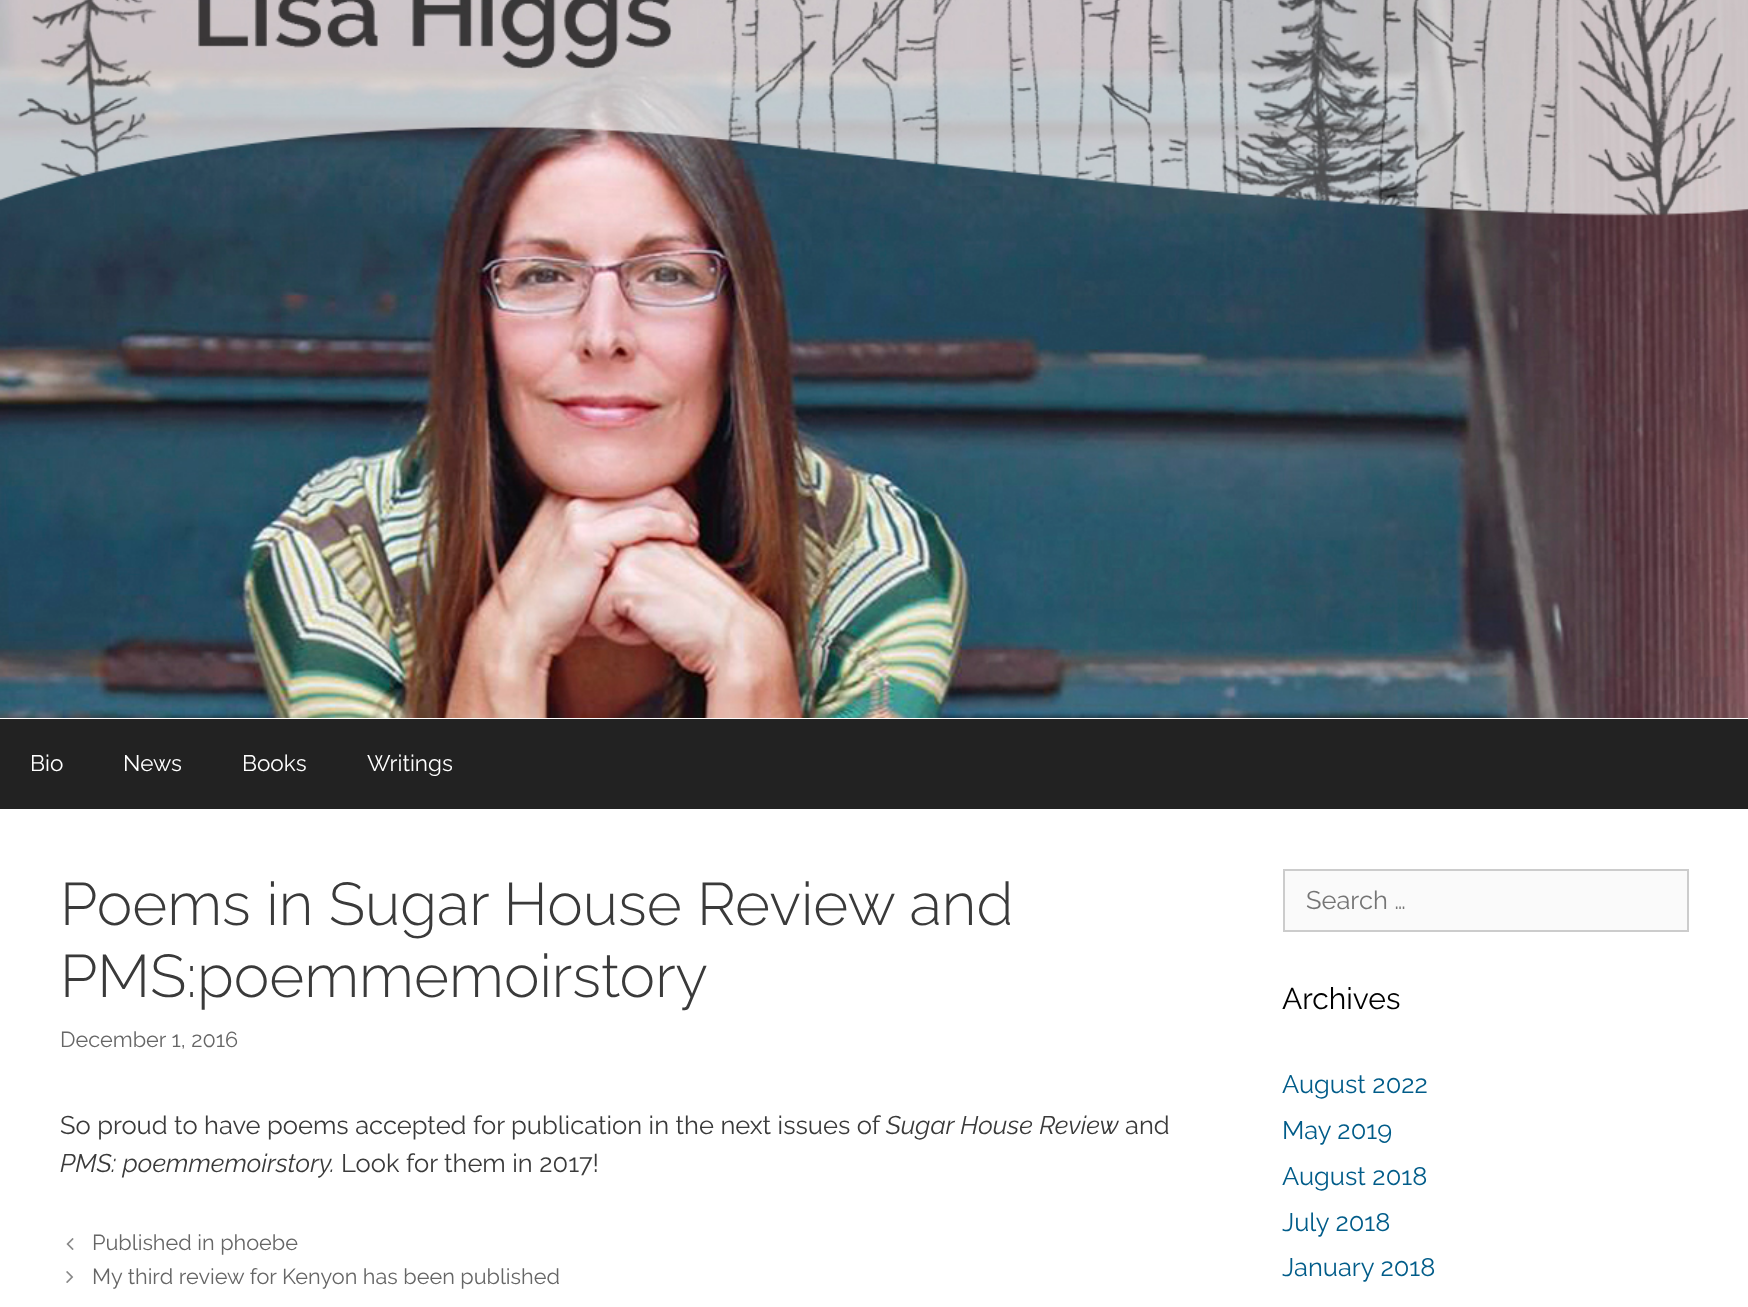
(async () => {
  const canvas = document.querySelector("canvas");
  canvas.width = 1748;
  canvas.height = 1307;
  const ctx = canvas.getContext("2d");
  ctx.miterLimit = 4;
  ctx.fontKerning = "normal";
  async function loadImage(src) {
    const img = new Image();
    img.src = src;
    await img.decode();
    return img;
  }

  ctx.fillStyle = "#ffffff";
  ctx.fillRect(0, 0, 1748, 1307);
  ctx.drawImage(await loadImage("img/1.png"), 0, 0, 1748, 718);
  ctx.fillStyle = "#222222";
  ctx.fillRect(0, 719, 1748, 90);
  ctx.drawImage(await loadImage("img/2.png"), 66, 1238, 8, 12);
  ctx.drawImage(await loadImage("img/3.png"), 66, 1271, 8, 12);
  ctx.fillStyle = "#fafafa";
  ctx.beginPath();
  ctx.rect(1284, 870, 404, 61);
  ctx.fill();
  ctx.strokeStyle = "#cccccc";
  ctx.lineWidth = 2;
  ctx.stroke();
  ctx.font = "22.5px Raleway";
  ctx.fillStyle = "#ffffff";
  for (const [text, x, y] of [
    ["Bio", 30, 771],
    ["News", 123, 771],
    ["Books", 242, 771],
    ["Writings", 367, 771],
  ]) {
    ctx.fillText(text, x, y);
  }
  ctx.font = "300 60px Raleway";
  ctx.fillStyle = "#3a3a3a";
  ctx.fillText("Poems in Sugar House Review and", 60, 925);
  ctx.fillText("PMS:poemmemoirstory", 60, 997);
  ctx.font = "21.7px Raleway";
  ctx.fillStyle = "#666666";
  ctx.fillText("December 1, 2016", 60, 1047);
  ctx.font = "25.5px Raleway";
  ctx.fillStyle = "#3a3a3a";
  ctx.fillText("So proud to have poems accepted for publication in the next issues of", 60, 1134);
  ctx.font = "italic 25.5px Raleway";
  ctx.fillText("Sugar House Review", 886, 1134);
  ctx.font = "25.5px Raleway";
  ctx.fillText("and", 1125, 1134);
  ctx.font = "italic 25.5px Raleway";
  ctx.fillText("PMS: poemmemoirstory.", 60, 1172);
  ctx.font = "25.5px Raleway";
  ctx.fillText("Look for them in 2017!", 341, 1172);
  ctx.font = "21.7px Raleway";
  ctx.fillStyle = "#666666";
  ctx.fillText("Published in phoebe", 92, 1250);
  ctx.fillText("My third review for Kenyon has been published", 92, 1284);
  ctx.font = "25.5px Raleway";
  ctx.fillStyle = "#757575";
  ctx.fillText("Search …", 1306, 909);
  ctx.font = "30px Raleway";
  ctx.fillStyle = "#000000";
  ctx.fillText("Archives", 1282, 1009);
  ctx.font = "25.5px Raleway";
  ctx.fillStyle = "#015c89";
  for (const [text, x, y] of [
    ["August 2022", 1282, 1093],
    ["May 2019", 1282, 1139],
    ["August 2018", 1282, 1185],
    ["July 2018", 1282, 1231],
    ["January 2018", 1282, 1276],
  ]) {
    ctx.fillText(text, x, y);
  }
})();
